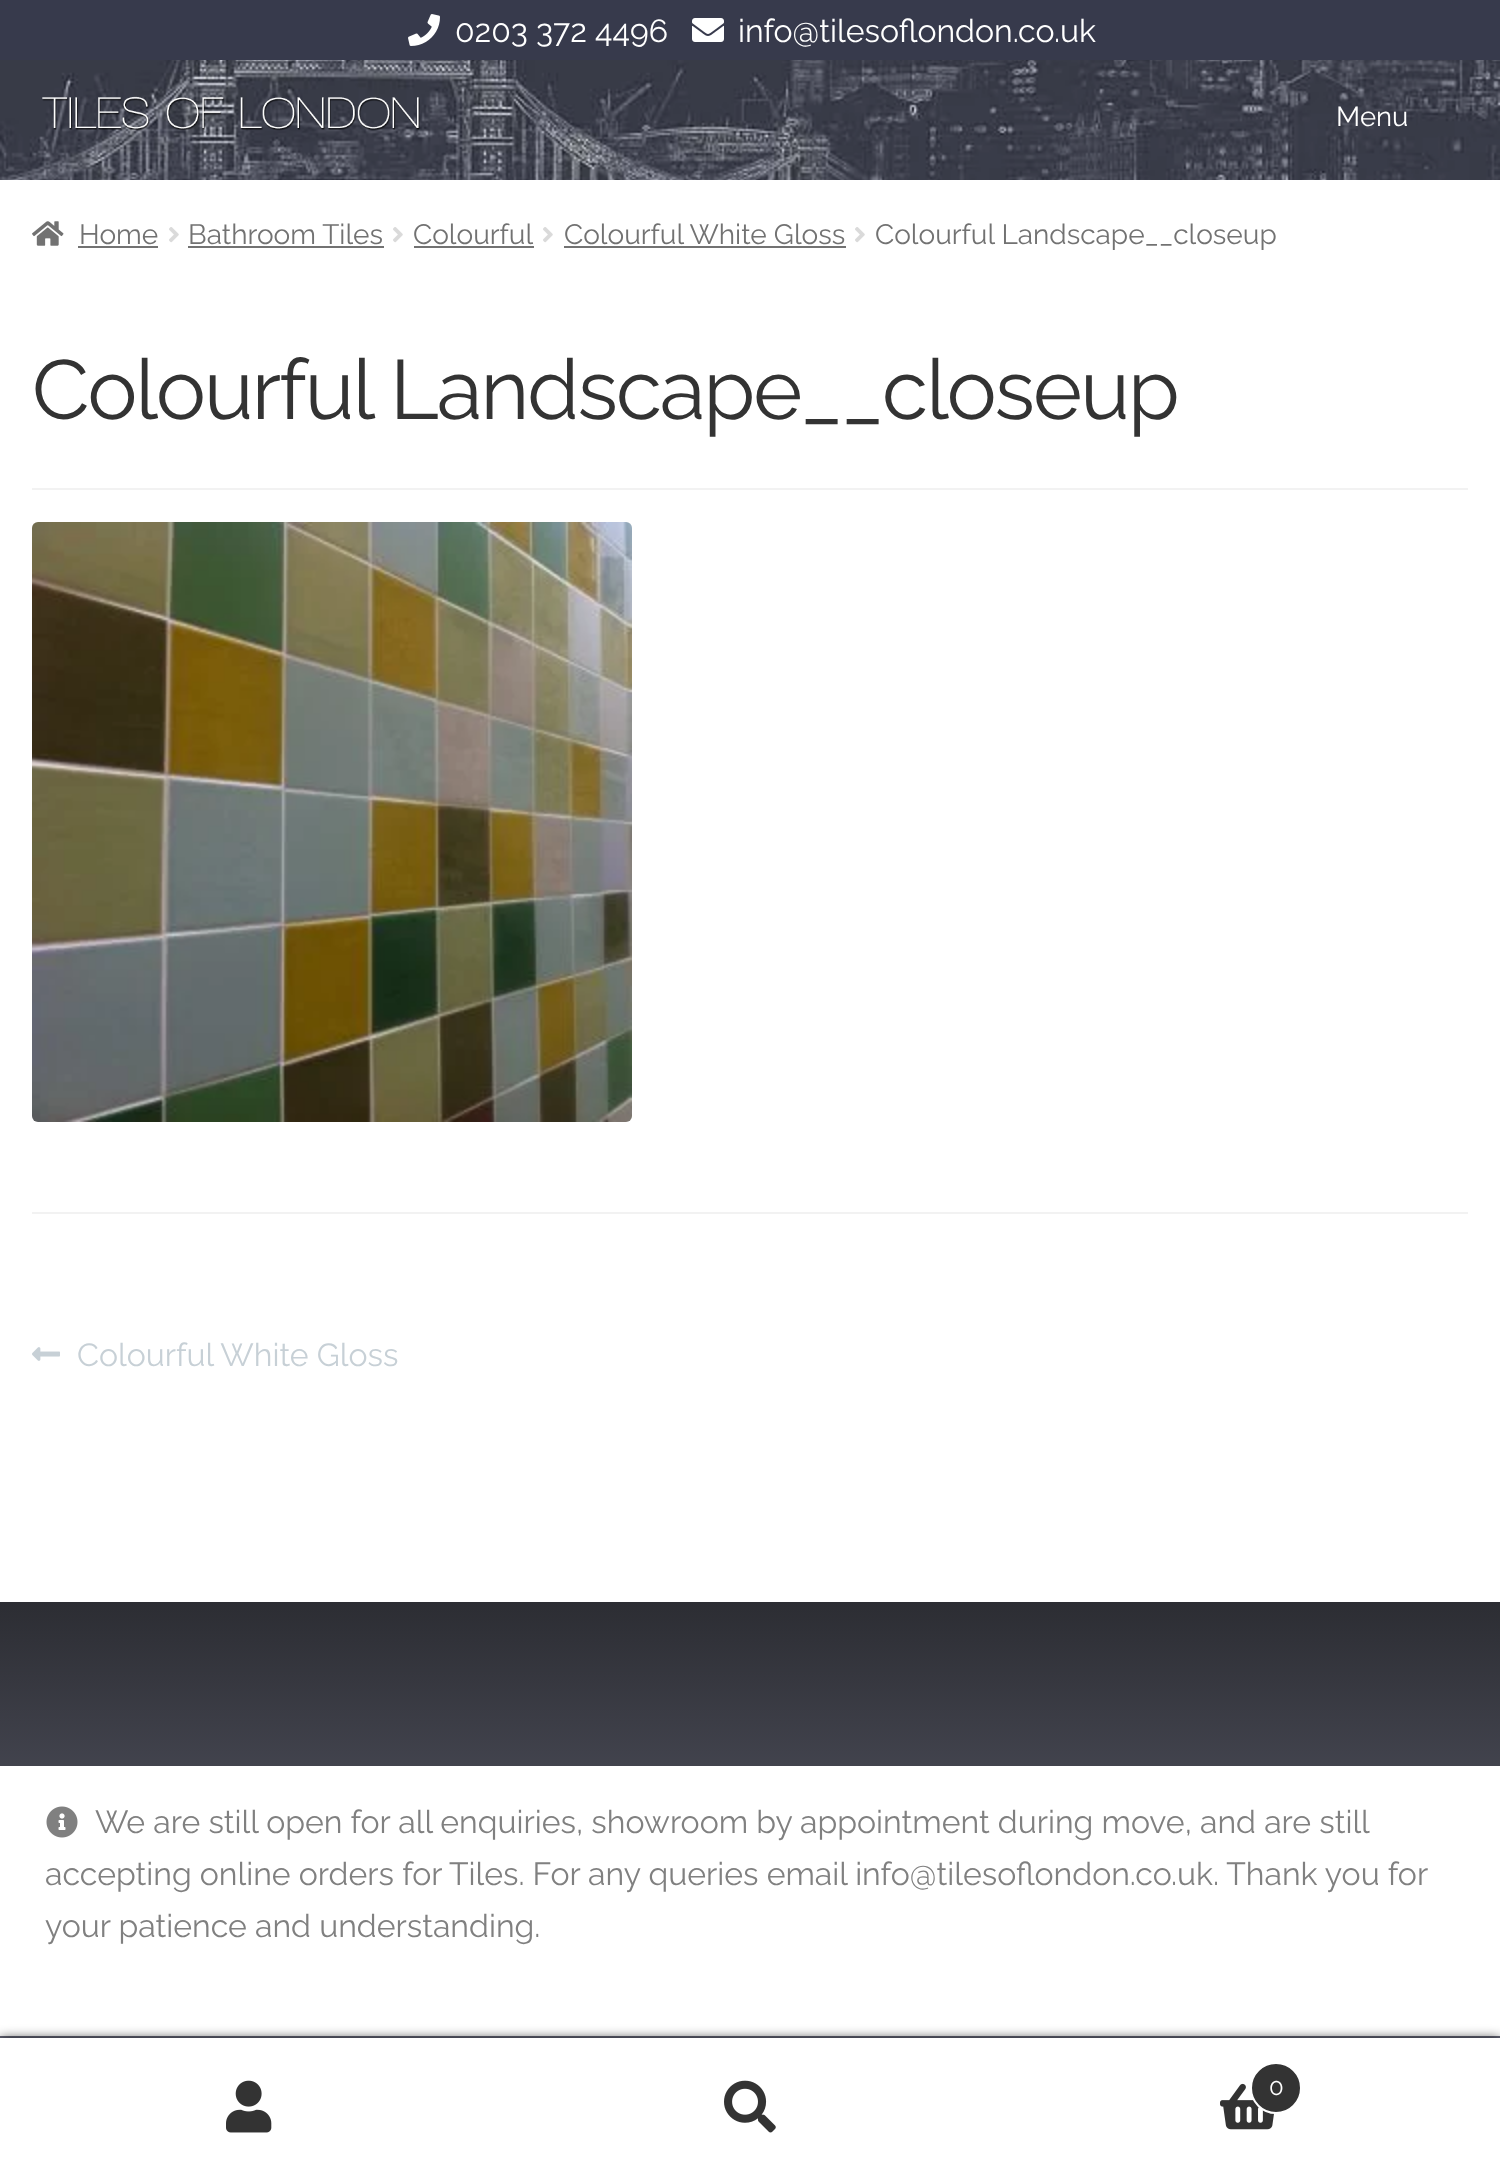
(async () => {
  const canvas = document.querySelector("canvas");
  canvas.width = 1500;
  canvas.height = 2174;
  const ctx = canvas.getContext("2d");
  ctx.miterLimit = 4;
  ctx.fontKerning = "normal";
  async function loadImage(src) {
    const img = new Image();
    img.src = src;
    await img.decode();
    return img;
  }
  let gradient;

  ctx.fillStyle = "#ffffff";
  ctx.fillRect(0, 0, 1500, 2174);
  ctx.fillStyle = "#373a4c";
  ctx.fillRect(0, 0, 1500, 60);
  ctx.drawImage(await loadImage("img/1.png"), 408, 14, 32, 32);
  ctx.drawImage(await loadImage("img/2.png"), 692, 18, 32, 24);
  ctx.drawImage(await loadImage("img/3.png"), 0, 60, 1500, 120);
  ctx.drawImage(await loadImage("img/4.png"), 42, 96, 378, 35);
  ctx.drawImage(await loadImage("img/5.png"), 32, 221, 32, 25);
  ctx.fillStyle = "#727272";
  ctx.fillRect(78, 246, 80, 2);
  ctx.drawImage(await loadImage("img/6.png"), 169, 227, 10, 16);
  ctx.fillRect(188, 246, 196, 2);
  ctx.drawImage(await loadImage("img/6.png"), 393, 227, 10, 16);
  ctx.fillRect(414, 246, 120, 2);
  ctx.drawImage(await loadImage("img/6.png"), 543, 227, 10, 16);
  ctx.fillRect(564, 246, 282, 2);
  ctx.drawImage(await loadImage("img/6.png"), 855, 227, 10, 16);
  ctx.fillStyle = "#f2f2f2";
  ctx.fillRect(32, 488, 1436, 2);
  ctx.drawImage(await loadImage("img/7.png"), 32, 522, 600, 600);
  ctx.fillRect(32, 1212, 1436, 2);
  ctx.drawImage(await loadImage("img/8.png"), 32, 1347, 28, 14);
  gradient = ctx.createLinearGradient(750, 1602, 750, 2110);
  gradient.addColorStop(0, "#2c2d33");
  gradient.addColorStop(1, "#6f7184");
  ctx.fillStyle = gradient;
  ctx.fillRect(0, 1602, 1500, 436);
  ctx.fillStyle = "#ffffff";
  ctx.fillRect(0, 1766, 1500, 270);
  ctx.fillStyle = "rgba(0, 0, 0, 0.7)";
  ctx.filter = "blur(6px)";
  ctx.beginPath();
  ctx.rect(0, 2038, 1500, 136);
  ctx.fill();
  ctx.filter = "none";
  ctx.fillStyle = "#ffffff";
  ctx.fillRect(0, 2038, 1500, 136);
  ctx.drawImage(await loadImage("img/9.png"), 226, 2080, 46, 53);
  ctx.drawImage(await loadImage("img/10.png"), 724, 2080, 52, 53);
  ctx.drawImage(await loadImage("img/11.png"), 1220, 2083, 55, 47);
  ctx.fillStyle = "#333333";
  ctx.beginPath();
  ctx.arc(1276, 2088, 25, 0, Math.PI * 2);
  ctx.fill();
  ctx.strokeStyle = "#ffffff";
  ctx.lineWidth = 2;
  ctx.stroke();
  ctx.drawImage(await loadImage("img/12.png"), 46, 1806, 32, 32);
  ctx.font = "100 32px Raleway";
  ctx.fillStyle = "#ffffff";
  ctx.fillText("0203 372 4496", 455, 42);
  ctx.fillText("info@tilesoflondon.co.uk", 738, 42);
  ctx.font = "100 27.5px Raleway";
  ctx.fillText("Menu", 1336, 126);
  ctx.font = "100 28px Raleway";
  ctx.fillStyle = "#727272";
  for (const [text, x, y] of [
    ["Home", 79, 244],
    ["Bathroom Tiles", 188, 244],
    ["Colourful", 413, 244],
    ["Colourful White Gloss", 564, 244],
    ["Colourful Landscape__closeup", 875, 244],
  ]) {
    ctx.fillText(text, x, y);
  }
  ctx.letterSpacing = "-2px";
  ctx.font = "100 83.75px Raleway";
  ctx.fillStyle = "#333333";
  ctx.fillText("Colourful Landscape__closeup", 32, 419);
  ctx.letterSpacing = "0px";
  ctx.font = "100 32px Raleway";
  ctx.fillStyle = "#c7d0d6";
  ctx.fillText("Colourful White Gloss", 77, 1366);
  ctx.font = "100 24px Raleway";
  ctx.fillStyle = "#ffffff";
  ctx.fillText("0", 1269, 2095);
  ctx.font = "100 32px Raleway";
  ctx.fillStyle = "#808080";
  for (const [text, x, y] of [
    ["We are still open for all enquiries, showroom by appointment during move, and are still", 95, 1833],
    ["accepting online orders for Tiles. For any queries email info@tilesoflondon.co.uk. Thank you for", 45, 1885],
    ["your patience and understanding.", 45, 1937],
  ]) {
    ctx.fillText(text, x, y);
  }
})();
